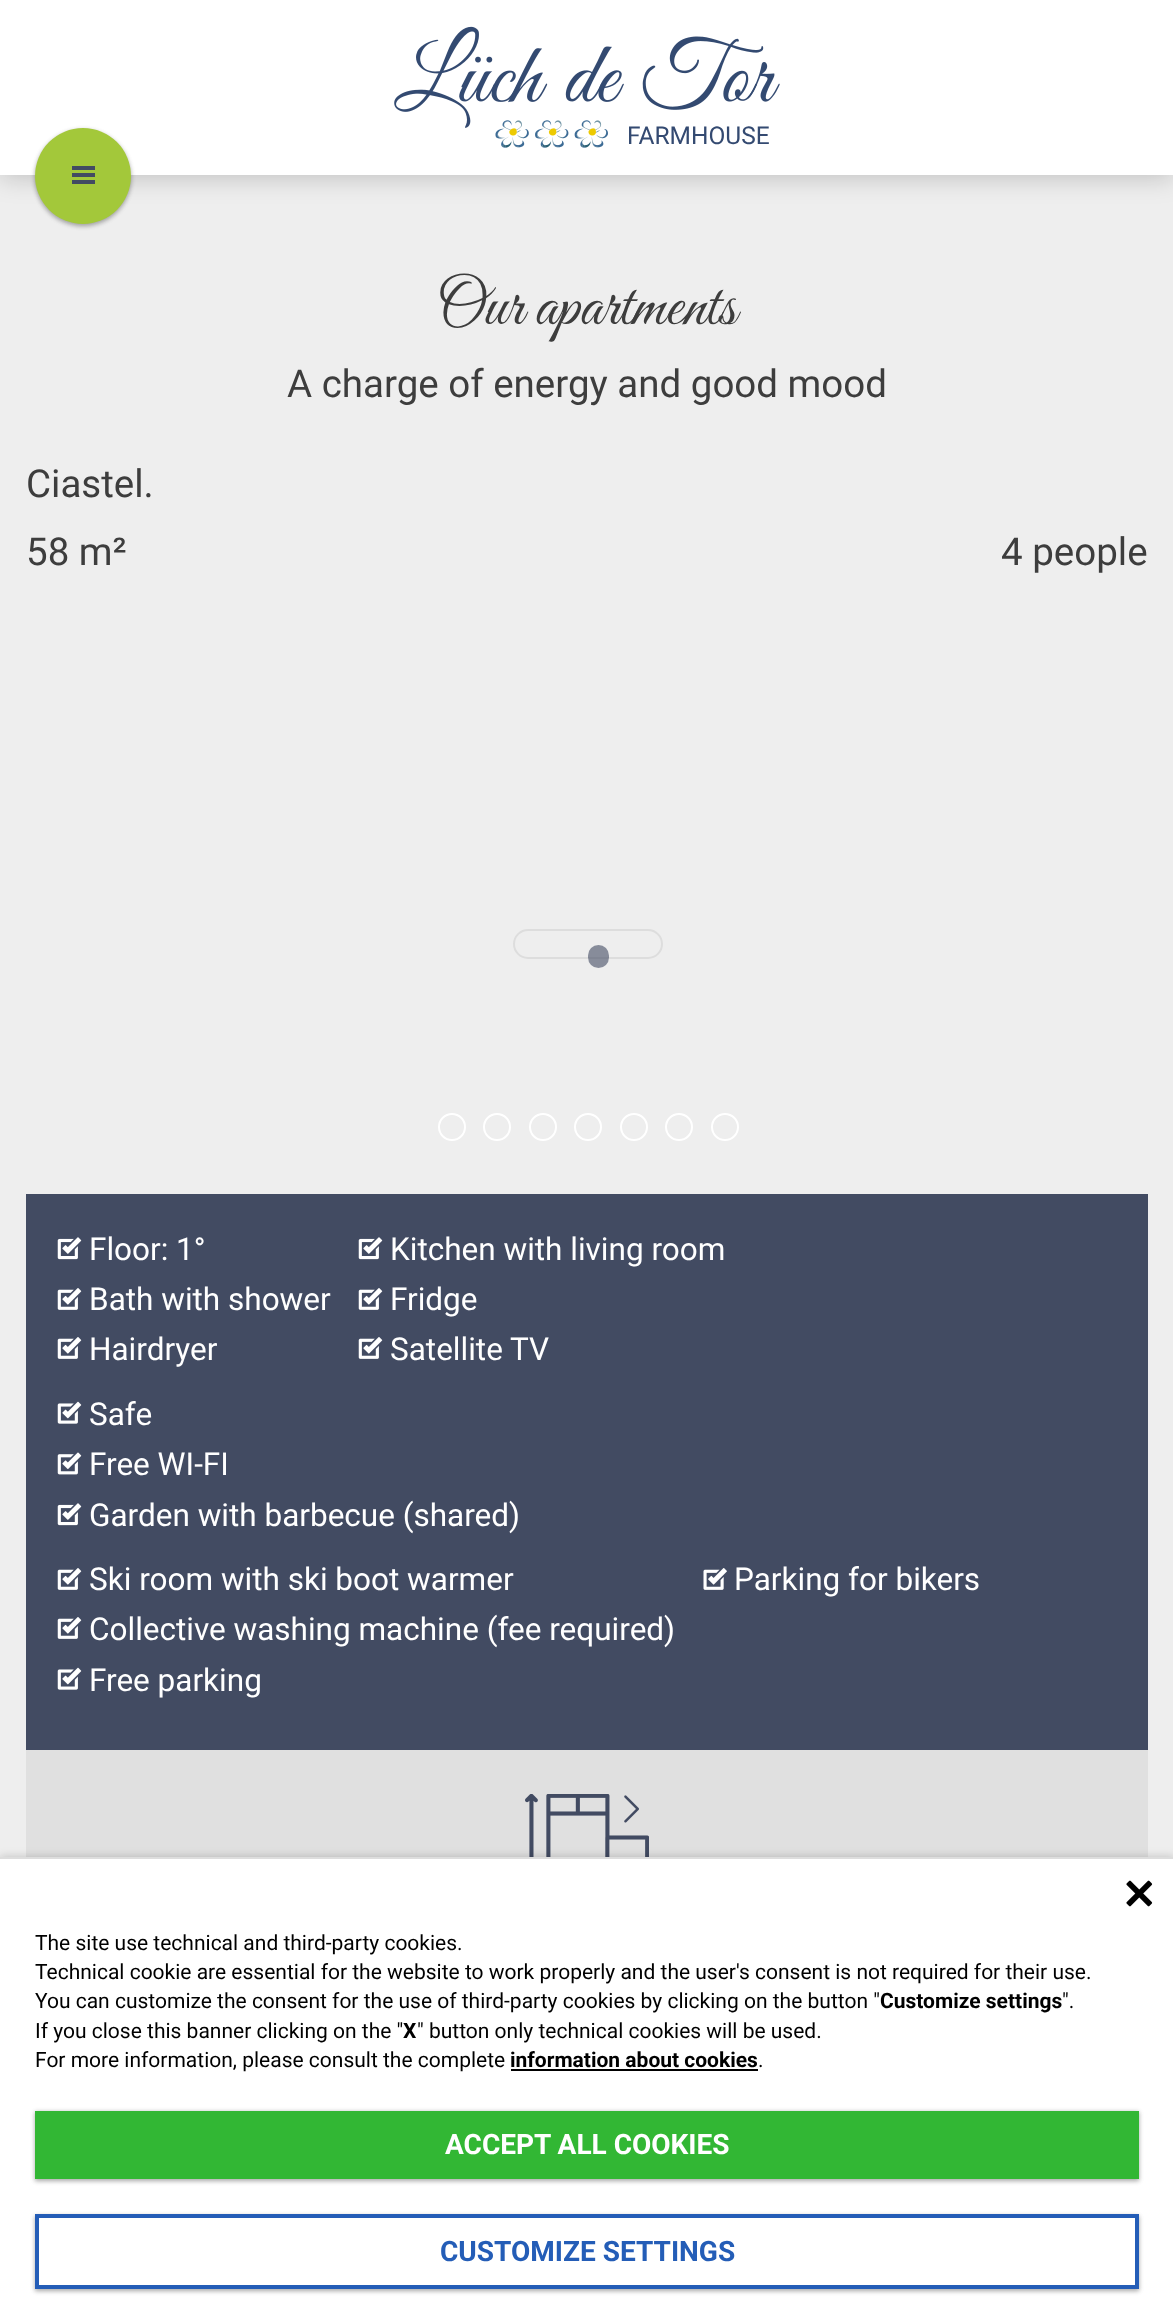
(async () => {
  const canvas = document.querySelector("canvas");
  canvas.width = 1173;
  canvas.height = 2323;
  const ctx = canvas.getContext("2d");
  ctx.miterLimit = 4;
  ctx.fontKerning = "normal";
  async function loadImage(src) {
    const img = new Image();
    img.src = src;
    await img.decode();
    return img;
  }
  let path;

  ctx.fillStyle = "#eeeeee";
  ctx.fillRect(0, 0, 1173, 2323);
  ctx.fillStyle = "rgba(0, 0, 0, 0.2)";
  ctx.filter = "blur(13px)";
  ctx.beginPath();
  ctx.rect(0, 2, 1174, 175);
  ctx.fill();
  ctx.filter = "none";
  ctx.fillStyle = "#ffffff";
  ctx.fillRect(0, 0, 1173, 175);
  ctx.fillStyle = "rgba(0, 0, 0, 0.24)";
  ctx.filter = "blur(2px)";
  ctx.beginPath();
  ctx.roundRect(35, 130, 96, 96, 48);
  ctx.fill();
  ctx.filter = "none";
  ctx.fillStyle = "rgba(0, 0, 0, 0.12)";
  ctx.filter = "blur(2.5px)";
  ctx.beginPath();
  ctx.roundRect(35, 130, 96, 96, 48);
  ctx.fill();
  ctx.filter = "none";
  ctx.fillStyle = "#a3c83a";
  ctx.beginPath();
  ctx.arc(83, 176, 48, 0, Math.PI * 2);
  ctx.fill();
  for (const [x, y, w, h, color] of [
    [72, 166, 23, 4, "#424b62"],
    [72, 173, 23, 4, "#424b62"],
    [72, 180, 23, 4, "#424b62"],
  ]) {
    ctx.fillStyle = color;
    ctx.fillRect(x, y, w, h);
  }
  ctx.drawImage(await loadImage("img/1.png"), 394, 26, 386, 122);
  ctx.beginPath();
  ctx.roundRect(514, 930, 148, 28, 14);
  ctx.strokeStyle = "#dddddd";
  ctx.lineWidth = 2;
  ctx.stroke();
  ctx.fillStyle = "rgba(66, 75, 98, 0.6)";
  ctx.beginPath();
  ctx.roundRect(588, 945, 21, 23, 10.5);
  ctx.fill();
  ctx.beginPath();
  ctx.arc(452, 1127, 13, 0, Math.PI * 2);
  ctx.strokeStyle = "#ffffff";
  ctx.stroke();
  ctx.beginPath();
  ctx.arc(497, 1127, 13, 0, Math.PI * 2);
  ctx.stroke();
  ctx.beginPath();
  ctx.arc(543, 1127, 13, 0, Math.PI * 2);
  ctx.stroke();
  ctx.beginPath();
  ctx.arc(588, 1127, 13, 0, Math.PI * 2);
  ctx.stroke();
  ctx.beginPath();
  ctx.arc(634, 1127, 13, 0, Math.PI * 2);
  ctx.stroke();
  ctx.beginPath();
  ctx.arc(679, 1127, 13, 0, Math.PI * 2);
  ctx.stroke();
  ctx.beginPath();
  ctx.arc(725, 1127, 13, 0, Math.PI * 2);
  ctx.stroke();
  ctx.fillStyle = "#424b62";
  ctx.fillRect(26, 1194, 1122, 556);
  ctx.drawImage(await loadImage("img/2.png"), 57, 1237, 25, 23);
  ctx.drawImage(await loadImage("img/3.png"), 57, 1288, 25, 22);
  ctx.drawImage(await loadImage("img/3.png"), 57, 1337, 25, 22);
  ctx.drawImage(await loadImage("img/2.png"), 358, 1237, 25, 23);
  ctx.drawImage(await loadImage("img/3.png"), 358, 1288, 25, 22);
  ctx.drawImage(await loadImage("img/3.png"), 358, 1337, 25, 22);
  ctx.drawImage(await loadImage("img/4.png"), 57, 1401, 25, 23);
  ctx.drawImage(await loadImage("img/5.png"), 57, 1452, 25, 23);
  ctx.drawImage(await loadImage("img/2.png"), 57, 1503, 25, 23);
  ctx.drawImage(await loadImage("img/3.png"), 57, 1568, 25, 22);
  ctx.drawImage(await loadImage("img/3.png"), 57, 1617, 25, 22);
  ctx.drawImage(await loadImage("img/4.png"), 57, 1667, 25, 23);
  ctx.drawImage(await loadImage("img/6.png"), 703, 1568, 24, 22);
  ctx.fillStyle = "#e0e0e0";
  ctx.fillRect(26, 1750, 1122, 107);
  ctx.drawImage(await loadImage("img/7.png"), 525, 1794, 124, 63);
  ctx.fillStyle = "rgba(0, 0, 0, 0.2)";
  ctx.filter = "blur(5px)";
  ctx.beginPath();
  ctx.rect(0, 1857, 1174, 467);
  ctx.fill();
  ctx.filter = "none";
  for (const [x, y, w, h, color] of [
    [0, 1859, 1173, 464, "#ffffff"],
    [0, 1857, 1173, 2, "#dddddd"],
    [511, 2069, 247, 2, "#000000"],
  ]) {
    ctx.fillStyle = color;
    ctx.fillRect(x, y, w, h);
  }
  ctx.drawImage(await loadImage("img/8.png"), 1126, 1880, 27, 27);
  ctx.fillStyle = "rgba(0, 0, 0, 0.24)";
  ctx.filter = "blur(2px)";
  ctx.beginPath();
  ctx.rect(35, 2112, 1104, 69);
  ctx.fill();
  ctx.filter = "none";
  ctx.fillStyle = "rgba(0, 0, 0, 0.12)";
  ctx.filter = "blur(2.5px)";
  ctx.beginPath();
  ctx.rect(35, 2112, 1104, 69);
  ctx.fill();
  ctx.filter = "none";
  ctx.fillStyle = "#32b734";
  ctx.fillRect(35, 2111, 1104, 68);
  ctx.save();
  path = new Path2D("M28 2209H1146V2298H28ZM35 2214H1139V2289H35Z");
  ctx.clip(path, "evenodd");
  ctx.fillStyle = "rgba(0, 0, 0, 0.24)";
  ctx.filter = "blur(2px)";
  ctx.beginPath();
  ctx.rect(35, 2216, 1104, 75);
  ctx.fill();
  ctx.filter = "none";
  ctx.restore();
  ctx.save();
  path = new Path2D("M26 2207H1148V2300H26ZM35 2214H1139V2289H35Z");
  ctx.clip(path, "evenodd");
  ctx.fillStyle = "rgba(0, 0, 0, 0.12)";
  ctx.filter = "blur(2.5px)";
  ctx.beginPath();
  ctx.rect(35, 2216, 1104, 75);
  ctx.fill();
  ctx.filter = "none";
  ctx.restore();
  ctx.strokeStyle = "#245db7";
  ctx.lineWidth = 4;
  ctx.strokeRect(37, 2216, 1100, 71);
  ctx.font = "24.5px Roboto";
  ctx.fillStyle = "#344a71";
  ctx.fillText("FARMHOUSE", 627, 144);
  ctx.font = "64.75px Great Vibes";
  ctx.fillStyle = "#3d3d3d";
  ctx.fillText("Our apartments", 437, 324);
  ctx.font = "38.5px Roboto";
  for (const [text, x, y] of [
    ["A charge of energy and good mood", 287, 397],
    ["Ciastel.", 26, 497],
    ["58 m²", 26, 565],
    ["4 people", 1001, 565],
  ]) {
    ctx.fillText(text, x, y);
  }
  ctx.font = "31.5px Roboto";
  ctx.fillStyle = "#ffffff";
  for (const [text, x, y] of [
    ["Floor: 1°", 89, 1260],
    ["Bath with shower", 89, 1310],
    ["Hairdryer", 89, 1360],
    ["Kitchen with living room", 390, 1260],
    ["Fridge", 390, 1310],
    ["Satellite TV", 390, 1360],
    ["Safe", 89, 1425],
    ["Free WI-FI", 89, 1475],
    ["Garden with barbecue (shared)", 89, 1526],
    ["Ski room with ski boot warmer", 89, 1590],
    ["Collective washing machine (fee required)", 89, 1640],
    ["Free parking", 89, 1691],
    ["Parking for bikers", 734, 1590],
  ]) {
    ctx.fillText(text, x, y);
  }
  ctx.font = "21px Roboto";
  ctx.fillStyle = "#000000";
  for (const [text, x, y] of [
    ["The site use technical and third-party cookies.", 35, 1950],
    ["Technical cookie are essential for the website to work properly and the user's consent is not required for their use.", 35, 1979],
    ["You can customize the consent for the use of third-party cookies by clicking on the button \"", 35, 2008],
  ]) {
    ctx.fillText(text, x, y);
  }
  ctx.font = "bold 21px Roboto";
  ctx.fillText("Customize settings", 880, 2008);
  ctx.font = "21px Roboto";
  ctx.fillText("\".", 1062, 2008);
  ctx.fillText("If you close this banner clicking on the \"", 35, 2038);
  ctx.font = "bold 21px Roboto";
  ctx.fillText("X", 403, 2038);
  ctx.font = "21px Roboto";
  ctx.fillText("\" button only technical cookies will be used.", 417, 2038);
  ctx.fillText("For more information, please consult the complete", 35, 2067);
  ctx.font = "bold 21px Roboto";
  ctx.fillText("information about cookies", 510, 2067);
  ctx.font = "21px Roboto";
  ctx.fillText(".", 758, 2067);
  ctx.font = "bold 28px Roboto";
  ctx.fillStyle = "#ffffff";
  ctx.fillText("ACCEPT ALL COOKIES", 445, 2154);
  ctx.fillStyle = "#245db7";
  ctx.fillText("CUSTOMIZE SETTINGS", 440, 2261);
})();
